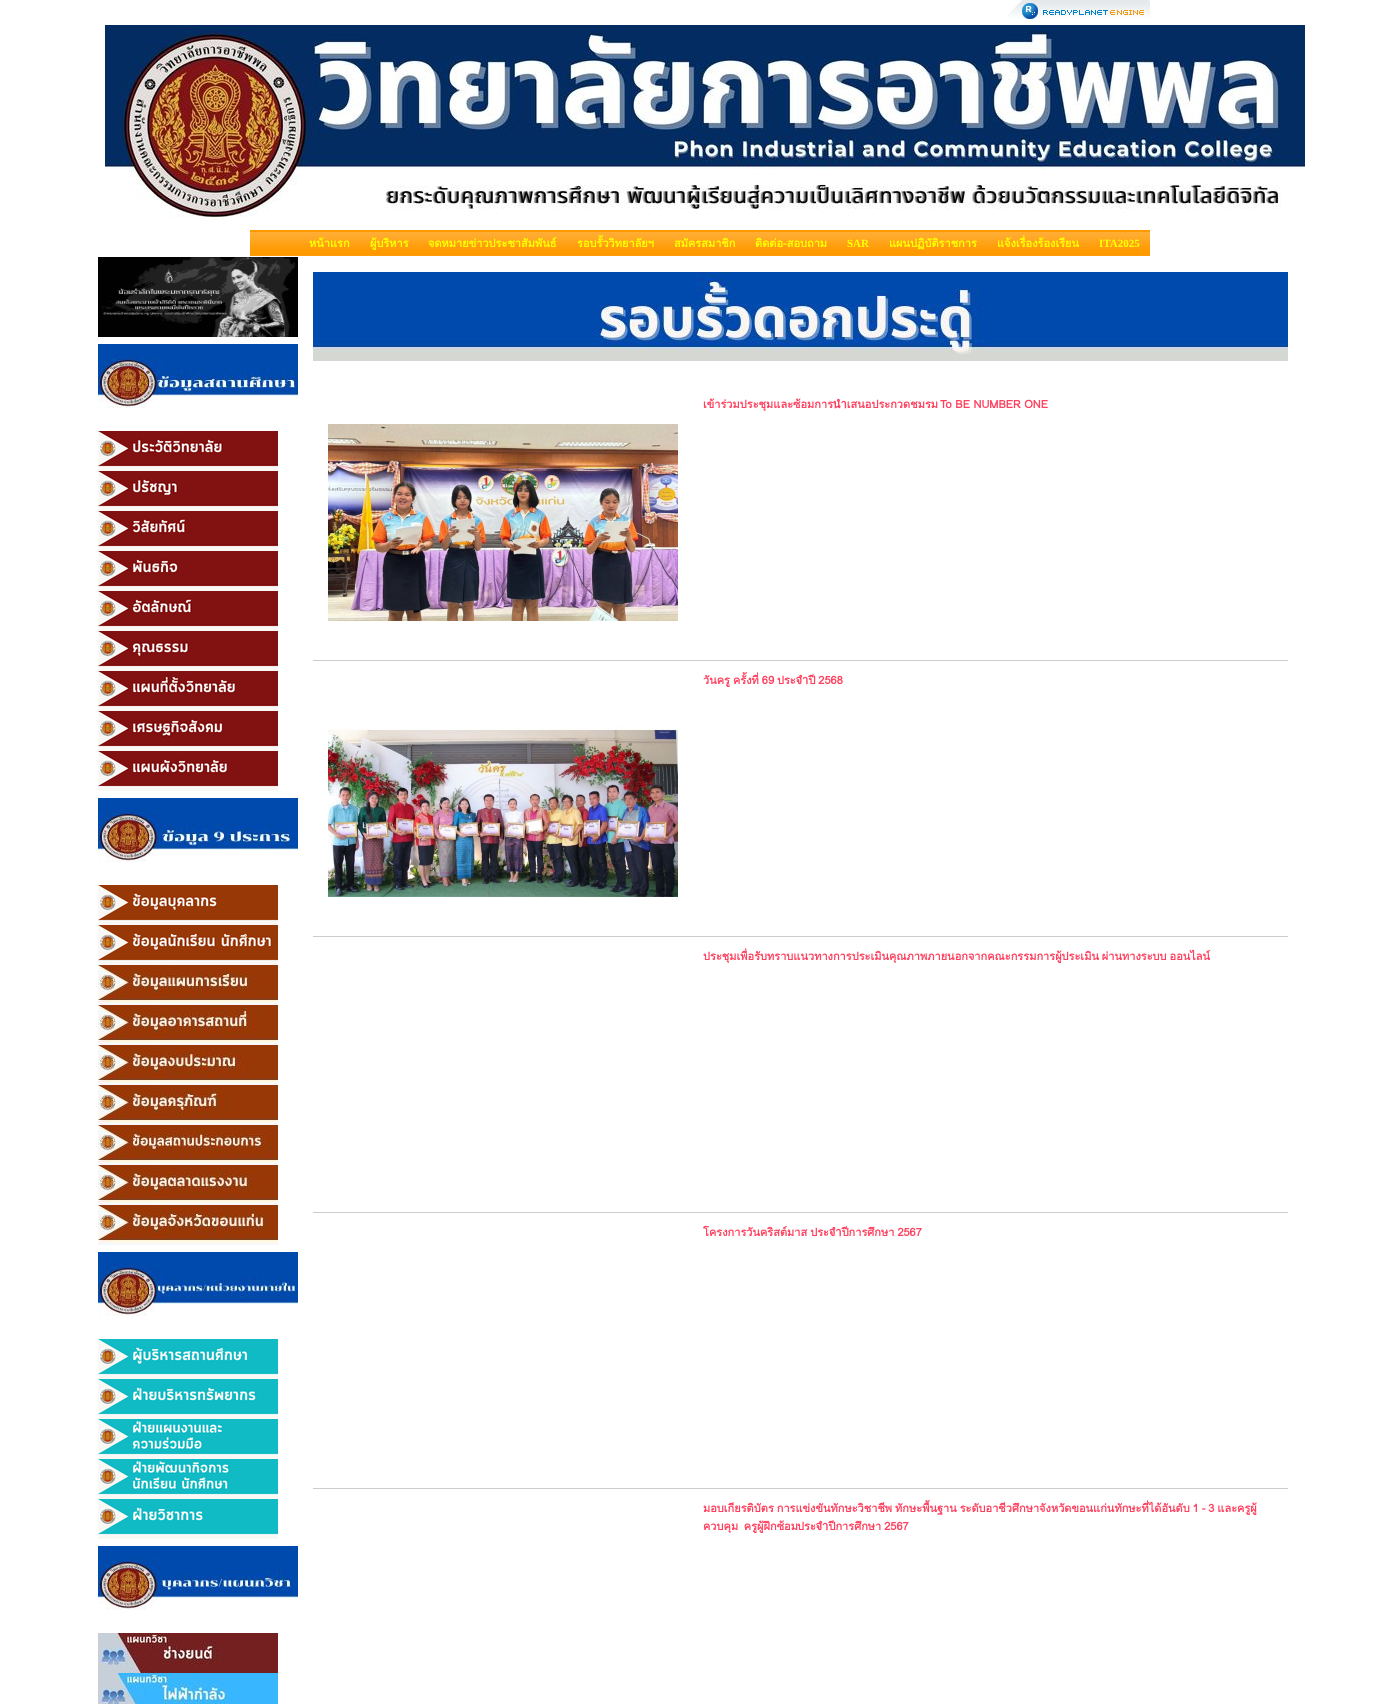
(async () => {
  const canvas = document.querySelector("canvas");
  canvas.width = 1400;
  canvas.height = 1704;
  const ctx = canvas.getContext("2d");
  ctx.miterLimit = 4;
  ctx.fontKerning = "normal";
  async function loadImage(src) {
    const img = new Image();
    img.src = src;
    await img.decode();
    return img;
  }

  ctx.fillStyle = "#ffffff";
  ctx.fillRect(0, 0, 1400, 1704);
  ctx.drawImage(await loadImage("img/1.png"), 1007, 0, 143, 19);
  ctx.drawImage(await loadImage("img/2.png"), 105, 25, 1200, 193);
  ctx.drawImage(await loadImage("img/3.png"), 250, 230, 900, 26);
  ctx.drawImage(await loadImage("img/4.png"), 98, 257, 200, 80);
  ctx.drawImage(await loadImage("img/5.png"), 98, 344, 200, 64);
  ctx.drawImage(await loadImage("img/6.png"), 98, 431, 180, 40);
  ctx.drawImage(await loadImage("img/7.png"), 98, 471, 180, 40);
  ctx.drawImage(await loadImage("img/8.png"), 98, 511, 180, 40);
  ctx.drawImage(await loadImage("img/9.png"), 98, 551, 180, 40);
  ctx.drawImage(await loadImage("img/10.png"), 98, 591, 180, 40);
  ctx.drawImage(await loadImage("img/11.png"), 98, 631, 180, 40);
  ctx.drawImage(await loadImage("img/12.png"), 98, 671, 180, 40);
  ctx.drawImage(await loadImage("img/13.png"), 98, 711, 180, 40);
  ctx.drawImage(await loadImage("img/14.png"), 98, 751, 180, 40);
  ctx.drawImage(await loadImage("img/15.png"), 98, 798, 200, 64);
  ctx.drawImage(await loadImage("img/16.png"), 98, 885, 180, 40);
  ctx.drawImage(await loadImage("img/17.png"), 98, 925, 180, 40);
  ctx.drawImage(await loadImage("img/18.png"), 98, 965, 180, 40);
  ctx.drawImage(await loadImage("img/19.png"), 98, 1005, 180, 40);
  ctx.drawImage(await loadImage("img/20.png"), 98, 1045, 180, 40);
  ctx.drawImage(await loadImage("img/21.png"), 98, 1085, 180, 40);
  ctx.drawImage(await loadImage("img/22.png"), 98, 1125, 180, 40);
  ctx.drawImage(await loadImage("img/23.png"), 98, 1165, 180, 40);
  ctx.drawImage(await loadImage("img/24.png"), 98, 1205, 180, 40);
  ctx.drawImage(await loadImage("img/25.png"), 98, 1252, 200, 64);
  ctx.drawImage(await loadImage("img/26.png"), 98, 1339, 180, 40);
  ctx.drawImage(await loadImage("img/27.png"), 98, 1379, 180, 40);
  ctx.drawImage(await loadImage("img/28.png"), 98, 1419, 180, 40);
  ctx.drawImage(await loadImage("img/29.png"), 98, 1459, 180, 40);
  ctx.drawImage(await loadImage("img/30.png"), 98, 1499, 180, 40);
  ctx.drawImage(await loadImage("img/31.png"), 98, 1546, 200, 64);
  ctx.drawImage(await loadImage("img/32.png"), 98, 1633, 180, 40);
  ctx.drawImage(await loadImage("img/33.png"), 98, 1673, 180, 31);
  ctx.drawImage(await loadImage("img/34.png"), 313, 272, 975, 89);
  ctx.fillStyle = "#cccccc";
  ctx.fillRect(313, 660, 975, 1);
  ctx.drawImage(await loadImage("img/35.png"), 328, 424, 350, 197);
  ctx.fillRect(313, 936, 975, 1);
  ctx.drawImage(await loadImage("img/36.png"), 328, 724, 350, 173);
  ctx.fillRect(313, 1212, 975, 1);
  ctx.fillRect(313, 1488, 975, 1);
  ctx.font = "bold 11px Loma";
  ctx.fillStyle = "#ffff00";
  for (const [text, x, y] of [
    ["หน้าแรก", 309, 247],
    ["ผู้บริหาร", 370, 247],
    ["จดหมายข่าวประชาสัมพันธ์", 428, 247],
    ["รอบรั้ววิทยาลัยฯ", 577, 247],
    ["สมัครสมาชิก", 674, 247],
    ["ติดต่อ-สอบถาม", 755, 247],
  ]) {
    ctx.fillText(text, x, y);
  }
  ctx.font = "bold 11px Liberation Serif";
  ctx.fillText("SAR", 847, 247);
  ctx.font = "bold 11px Loma";
  ctx.fillText("แผนปฏิบัติราชการ", 889, 247);
  ctx.fillText("แจ้งเรื่องร้องเรียน", 997, 247);
  ctx.font = "bold 11px Liberation Serif";
  ctx.fillText("ITA2025", 1099, 247);
  ctx.font = "bold 11px Loma";
  ctx.fillStyle = "#ff405e";
  ctx.fillText("เข้าร่วมประชุมและซ้อมการนำเสนอประกวดชมรม", 703, 408);
  ctx.fillText("To BE NUMBER ONE", 940, 408);
  ctx.wordSpacing = "-0.75px";
  for (const [text, x, y] of [
    ["วันครู ครั้งที่ 69 ประจำปี 2568", 703, 684],
    ["ประชุมเพื่อรับทราบแนวทางการประเมินคุณภาพภายนอกจากคณะกรรมการผู้ประเมิน ผ่านทางระบบ ออนไลน์", 703, 960],
    ["โครงการวันคริสต์มาส ประจำปีการศึกษา 2567", 703, 1236],
    ["มอบเกียรติบัตร การแข่งขันทักษะวิชาชีพ ทักษะพื้นฐาน ระดับอาชีวศึกษาจังหวัดขอนแก่นทักษะที่ได้อันดับ 1 - 3 และครูผู้", 703, 1512],
  ]) {
    ctx.fillText(text, x, y);
  }
  ctx.wordSpacing = "2px";
  ctx.fillText("ควบคุม ครูผู้ฝึกซ้อม", 703, 1530);
  ctx.wordSpacing = "-0.75px";
  ctx.fillText("ประจำปีการศึกษา 2567", 797, 1530);
})();
